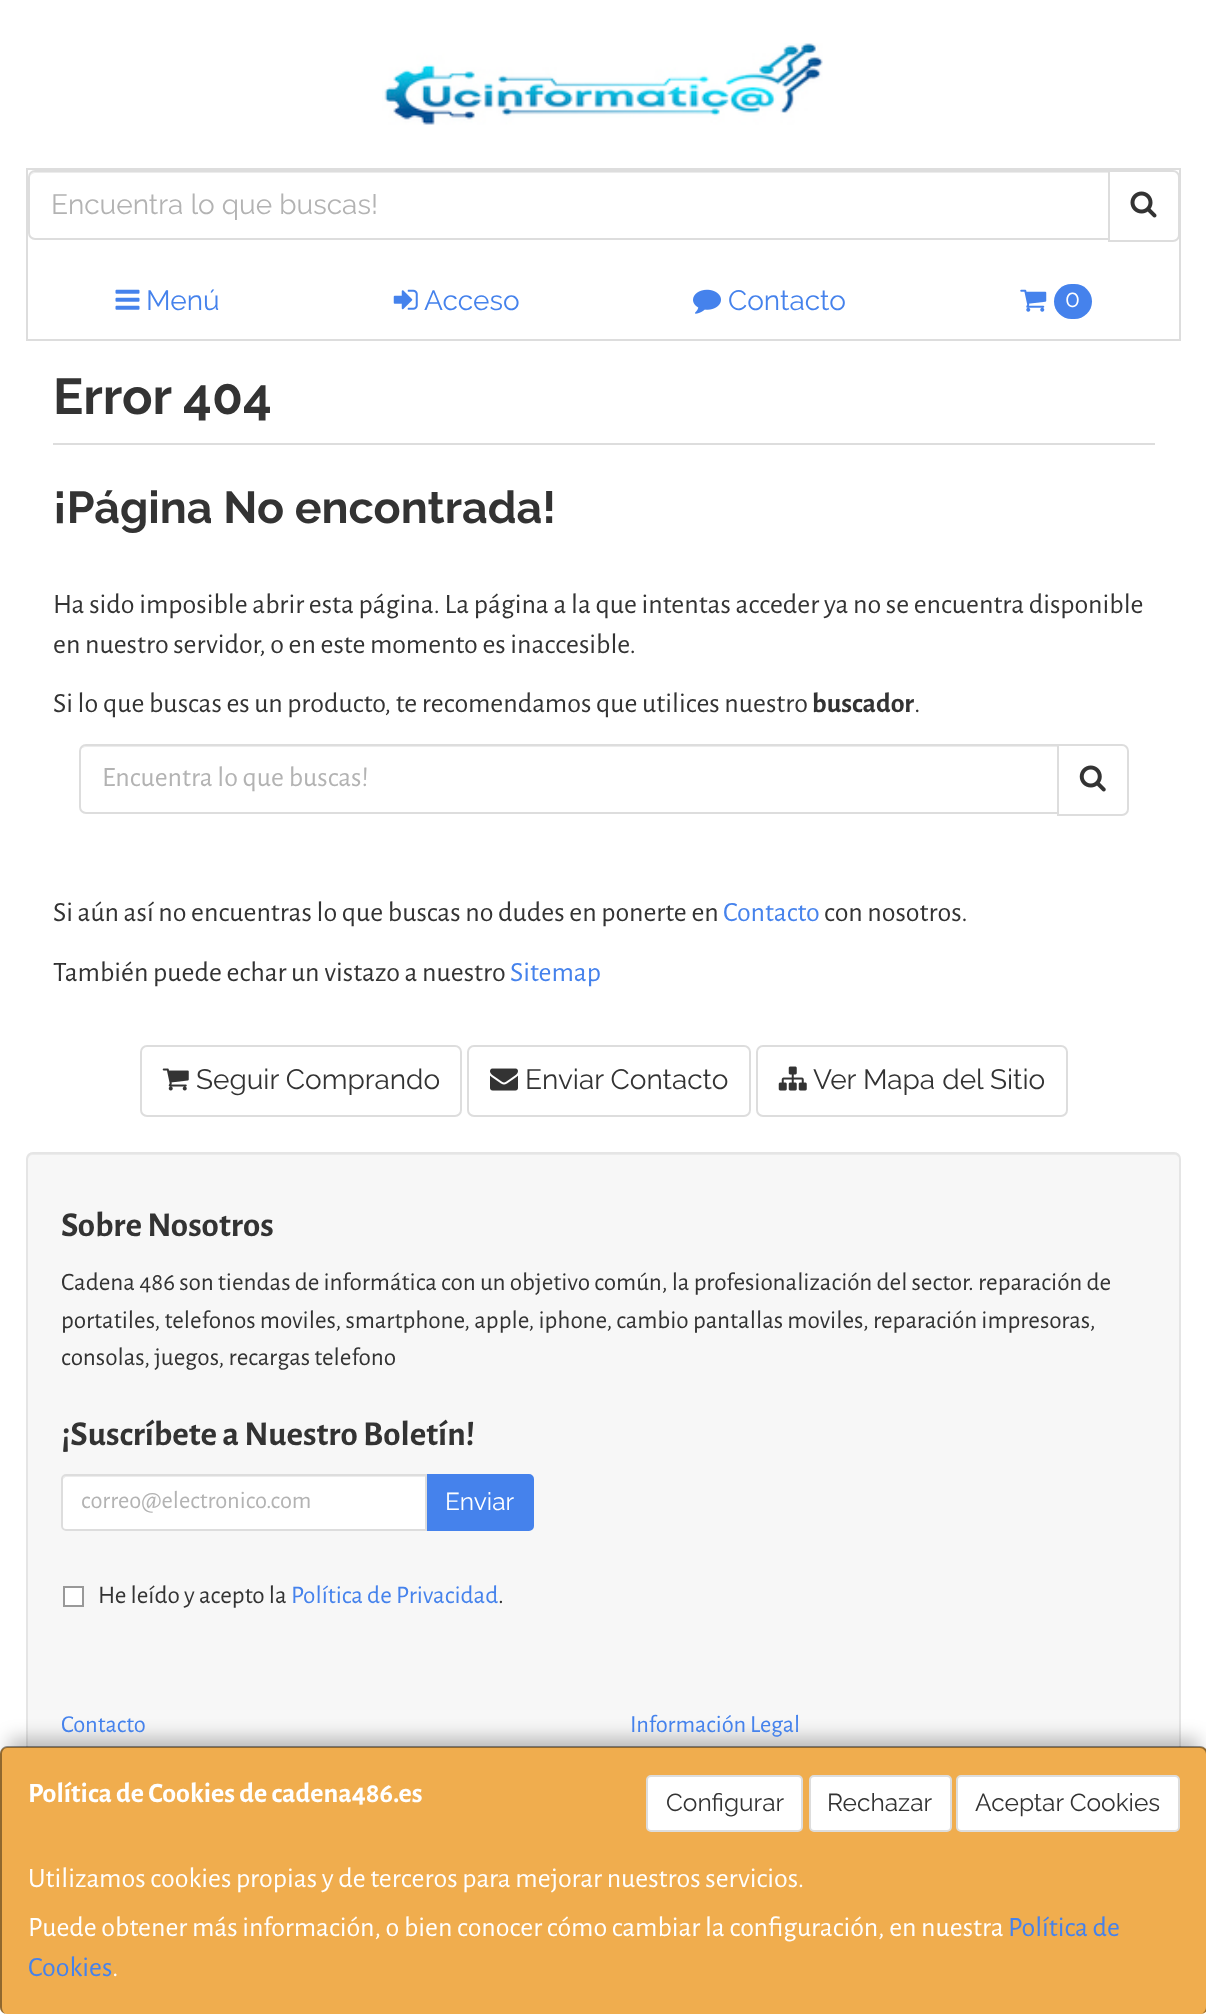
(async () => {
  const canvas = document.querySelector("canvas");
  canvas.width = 1206;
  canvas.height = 2014;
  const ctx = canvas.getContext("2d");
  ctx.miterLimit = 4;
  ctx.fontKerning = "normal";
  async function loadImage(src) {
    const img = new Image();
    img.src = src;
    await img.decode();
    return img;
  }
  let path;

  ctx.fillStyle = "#ffffff";
  ctx.fillRect(0, 0, 1206, 2014);
  ctx.drawImage(await loadImage("img/1.png"), 382, 43, 441, 82);
  ctx.strokeStyle = "#dddddd";
  ctx.lineWidth = 2;
  ctx.strokeRect(27, 169, 1153, 171);
  ctx.beginPath();
  ctx.roundRect(1109, 171, 70, 70, [0, 6, 6, 0]);
  ctx.fill();
  ctx.stroke();
  ctx.beginPath();
  ctx.roundRect(28, 170, 1082, 70, [7, 0, 0, 7]);
  ctx.fill();
  ctx.fillStyle = "#ececec";
  path = new Path2D("M35 173H1108V172H35C32 172 30 175 30 178C30 176 32 173 35 173Z");
  ctx.fill(path);
  ctx.beginPath();
  ctx.roundRect(29, 171, 1080, 68, [6, 0, 0, 6]);
  ctx.stroke();
  ctx.drawImage(await loadImage("img/2.png"), 1130, 191, 27, 27);
  ctx.drawImage(await loadImage("img/3.png"), 115, 289, 25, 21);
  ctx.drawImage(await loadImage("img/4.png"), 393, 289, 25, 21);
  ctx.drawImage(await loadImage("img/5.png"), 693, 289, 28, 25);
  ctx.drawImage(await loadImage("img/6.png"), 1020, 289, 27, 23);
  ctx.fillStyle = "#4582ec";
  ctx.beginPath();
  ctx.roundRect(1054, 284, 38, 35, 17.5);
  ctx.fill();
  ctx.fillStyle = "#dddddd";
  ctx.fillRect(53, 443, 1102, 2);
  ctx.beginPath();
  ctx.roundRect(1058, 745, 70, 70, [0, 6, 6, 0]);
  ctx.stroke();
  ctx.fillStyle = "#ffffff";
  ctx.beginPath();
  ctx.roundRect(79, 744, 980, 70, [7, 0, 0, 7]);
  ctx.fill();
  ctx.fillStyle = "#ececec";
  path = new Path2D("M86 747H1057V746H86C84 746 82 747 81 749C82 748 84 747 86 747Z");
  ctx.fill(path);
  ctx.beginPath();
  ctx.roundRect(80, 745, 978, 68, [6, 0, 0, 6]);
  ctx.stroke();
  ctx.drawImage(await loadImage("img/7.png"), 1079, 765, 27, 27);
  ctx.beginPath();
  ctx.roundRect(141, 1046, 320, 70, 6);
  ctx.stroke();
  ctx.drawImage(await loadImage("img/8.png"), 162, 1068, 27, 23);
  ctx.beginPath();
  ctx.roundRect(468, 1046, 282, 70, 6);
  ctx.stroke();
  ctx.drawImage(await loadImage("img/9.png"), 490, 1068, 28, 23);
  ctx.beginPath();
  ctx.roundRect(757, 1046, 310, 70, 6);
  ctx.stroke();
  ctx.drawImage(await loadImage("img/10.png"), 778, 1066, 29, 25);
  ctx.fillStyle = "#f7f7f7";
  ctx.beginPath();
  ctx.roundRect(26, 1152, 1155, 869, 7);
  ctx.fill();
  ctx.fillStyle = "#ebebeb";
  path = new Path2D("M33 1155H1174C1177 1155 1180 1157 1180 1160V1158C1180 1155 1178 1153 1175 1153H33C30 1153 28 1155 28 1158V1160C28 1157 30 1155 33 1155Z");
  ctx.fill(path);
  ctx.beginPath();
  ctx.roundRect(27, 1153, 1153, 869, 6);
  ctx.strokeStyle = "#e5e5e5";
  ctx.stroke();
  ctx.fillStyle = "#4582ec";
  ctx.beginPath();
  ctx.roundRect(426, 1475, 107, 55, [0, 4, 4, 0]);
  ctx.fill();
  ctx.strokeStyle = "#4582ec";
  ctx.stroke();
  ctx.fillStyle = "#ffffff";
  ctx.beginPath();
  ctx.roundRect(61, 1474, 366, 57, [5, 0, 0, 5]);
  ctx.fill();
  ctx.fillStyle = "#ececec";
  path = new Path2D("M66 1477H425V1475H67C64 1475 63 1477 63 1480C63 1479 65 1477 66 1477Z");
  ctx.fill(path);
  ctx.beginPath();
  ctx.roundRect(62, 1475, 364, 55, [4, 0, 0, 4]);
  ctx.strokeStyle = "#dddddd";
  ctx.stroke();
  ctx.fillStyle = "#ffffff";
  ctx.beginPath();
  ctx.rect(64, 1587, 19, 19);
  ctx.fill();
  ctx.strokeStyle = "#999999";
  ctx.stroke();
  ctx.fillStyle = "rgba(0, 0, 0, 0.25)";
  ctx.filter = "blur(9px)";
  ctx.beginPath();
  ctx.rect(9, 1738, 1190, 250);
  ctx.fill();
  ctx.filter = "none";
  ctx.fillStyle = "#f0ad4e";
  ctx.beginPath();
  ctx.roundRect(0, 1747, 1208, 267, 7);
  ctx.fill();
  ctx.fillStyle = "rgba(0, 0, 0, 0.4)";
  path = new Path2D("M7 1746H1200C1204 1746 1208 1750 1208 1754V2007C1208 2011 1204 2014 1200 2014H7C3 2014 0 2011 0 2007V1754C0 1750 3 1746 7 1746ZM7 1748H1200C1203 1748 1206 1751 1206 1754V2007C1206 2011 1203 2014 1200 2014H7C4 2014 2 2011 2 2007V1754C2 1751 4 1748 7 1748Z");
  ctx.fill(path, "evenodd");
  ctx.fillStyle = "#ffffff";
  ctx.beginPath();
  ctx.roundRect(647, 1776, 155, 55, 4);
  ctx.fill();
  ctx.strokeStyle = "#dddddd";
  ctx.stroke();
  ctx.beginPath();
  ctx.roundRect(810, 1776, 141, 55, 4);
  ctx.fill();
  ctx.stroke();
  ctx.beginPath();
  ctx.roundRect(957, 1776, 222, 55, 4);
  ctx.fill();
  ctx.stroke();
  ctx.font = "28px Raleway";
  ctx.fillStyle = "#b3b3b3";
  ctx.fillText("Encuentra lo que buscas!", 51, 214);
  ctx.fillStyle = "#4582ec";
  for (const [text, x, y] of [
    ["Menú", 146, 310],
    ["Acceso", 424, 310],
    ["Contacto", 728, 310],
  ]) {
    ctx.fillText(text, x, y);
  }
  ctx.font = "24.5px Raleway";
  ctx.fillStyle = "#ffffff";
  ctx.fillText("0", 1065, 307);
  ctx.font = "bold 50.5px Raleway";
  ctx.fillStyle = "#333333";
  ctx.fillText("Error 404", 53, 414);
  ctx.font = "bold 44.75px Raleway";
  ctx.fillText("¡Página No encontrada!", 53, 523);
  ctx.font = "28px Alegreya Sans";
  for (const [text, x, y] of [
    ["Ha sido imposible abrir esta página. La página a la que intentas acceder ya no se encuentra disponible", 53, 613],
    ["en nuestro servidor, o en este momento es inaccesible.", 53, 653],
    ["Si lo que buscas es un producto, te recomendamos que utilices nuestro", 53, 712],
  ]) {
    ctx.fillText(text, x, y);
  }
  ctx.font = "bold 28px Alegreya Sans";
  ctx.fillText("buscador", 812, 712);
  ctx.font = "28px Alegreya Sans";
  ctx.fillText(".", 914, 712);
  ctx.fillStyle = "#b3b3b3";
  ctx.fillText("Encuentra lo que buscas!", 102, 786);
  ctx.fillStyle = "#333333";
  ctx.fillText("Si aún así no encuentras lo que buscas no dudes en ponerte en", 53, 921);
  ctx.fillStyle = "#4582ec";
  ctx.fillText("Contacto", 723, 921);
  ctx.fillStyle = "#333333";
  ctx.fillText("con nosotros.", 824, 921);
  ctx.fillText("También puede echar un vistazo a nuestro", 53, 981);
  ctx.fillStyle = "#4582ec";
  ctx.fillText("Sitemap", 510, 981);
  ctx.font = "28px Raleway";
  ctx.fillStyle = "#333333";
  for (const [text, x, y] of [
    ["Seguir Comprando", 196, 1089],
    ["Enviar Contacto", 525, 1089],
    ["Ver Mapa del Sitio", 813, 1089],
  ]) {
    ctx.fillText(text, x, y);
  }
  ctx.font = "bold 35px Alegreya Sans";
  ctx.fillText("Sobre Nosotros", 61, 1236);
  ctx.font = "25.2px Alegreya Sans";
  for (const [text, x, y] of [
    ["Cadena 486 son tiendas de informática con un objetivo común, la profesionalización del sector. reparación de", 61, 1290],
    ["portatiles, telefonos moviles, smartphone, apple, iphone, cambio pantallas moviles, reparación impresoras,", 61, 1328],
    ["consolas, juegos, recargas telefono", 61, 1365],
  ]) {
    ctx.fillText(text, x, y);
  }
  ctx.font = "bold 35px Alegreya Sans";
  ctx.fillText("¡Suscríbete a Nuestro Boletín!", 61, 1445);
  ctx.font = "24.5px Alegreya Sans";
  ctx.fillStyle = "#b3b3b3";
  ctx.fillText("correo@electronico.com", 81, 1508);
  ctx.font = "24.5px Raleway";
  ctx.fillStyle = "#ffffff";
  ctx.fillText("Enviar", 445, 1510);
  ctx.font = "25.2px Alegreya Sans";
  ctx.fillStyle = "#333333";
  ctx.fillText("He leído y acepto la", 98, 1603);
  ctx.fillStyle = "#4582ec";
  ctx.fillText("Política de Privacidad", 291, 1603);
  ctx.fillStyle = "#333333";
  ctx.fillText(".", 498, 1603);
  ctx.font = "24.5px Alegreya Sans";
  ctx.fillStyle = "#4582ec";
  ctx.fillText("Contacto", 61, 1732);
  ctx.fillText("Información Legal", 630, 1732);
  ctx.font = "bold 28px Alegreya Sans";
  ctx.fillStyle = "#ffffff";
  ctx.fillText("Política de Cookies de cadena486.es", 28, 1802);
  ctx.font = "24.5px Raleway";
  ctx.fillStyle = "#333333";
  for (const [text, x, y] of [
    ["Configurar", 666, 1811],
    ["Rechazar", 827, 1811],
    ["Aceptar Cookies", 975, 1811],
  ]) {
    ctx.fillText(text, x, y);
  }
  ctx.font = "28px Alegreya Sans";
  ctx.fillStyle = "#ffffff";
  ctx.fillText("Utilizamos cookies propias y de terceros para mejorar nuestros servicios.", 28, 1887);
  ctx.fillText("Puede obtener más información, o bien conocer cómo cambiar la configuración, en nuestra", 28, 1936);
  ctx.fillStyle = "#4582ec";
  ctx.fillText("Política de", 1008, 1936);
  ctx.fillText("Cookies", 28, 1976);
  ctx.fillStyle = "#ffffff";
  ctx.fillText(".", 112, 1976);
})();
